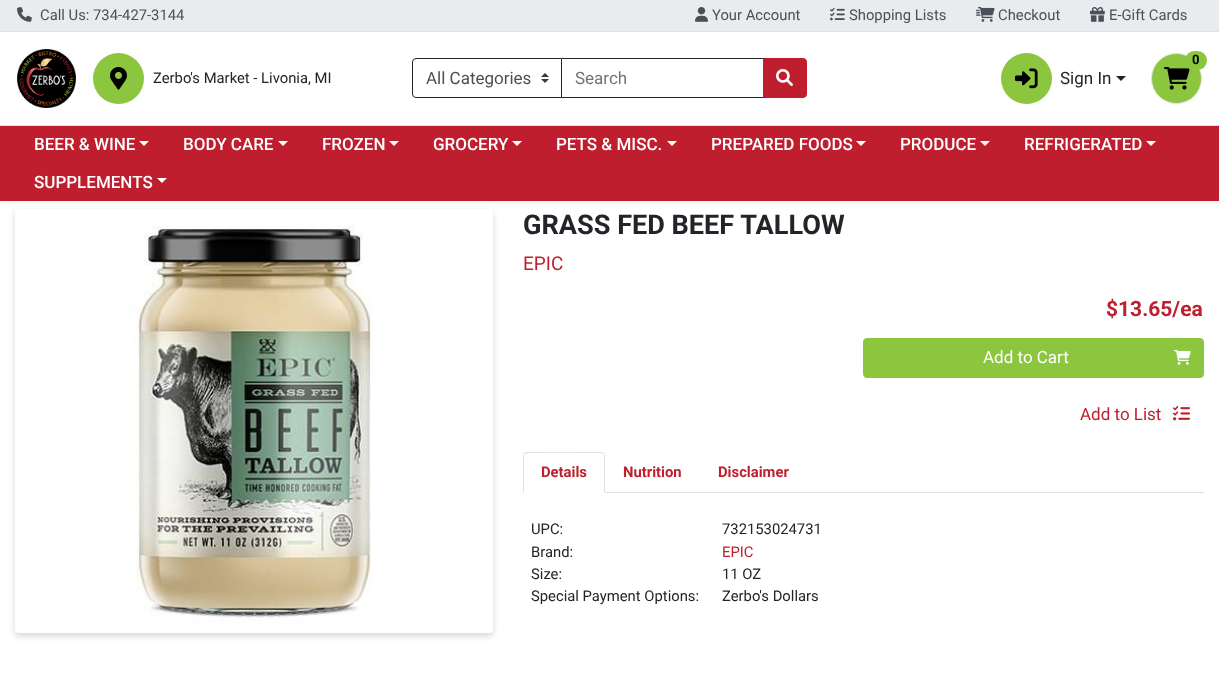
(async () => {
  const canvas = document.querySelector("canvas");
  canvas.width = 1219;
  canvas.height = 696;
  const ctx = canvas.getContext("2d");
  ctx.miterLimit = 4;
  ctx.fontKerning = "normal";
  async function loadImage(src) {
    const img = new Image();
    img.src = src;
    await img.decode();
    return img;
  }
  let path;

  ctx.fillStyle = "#ffffff";
  ctx.fillRect(0, 0, 1219, 696);
  ctx.fillStyle = "rgba(0, 0, 0, 0.16)";
  ctx.filter = "blur(3px)";
  ctx.beginPath();
  ctx.roundRect(15, 212, 478, 424, 4);
  ctx.fill();
  ctx.filter = "none";
  ctx.fillStyle = "#ffffff";
  ctx.beginPath();
  ctx.roundRect(15, 209, 478, 424, 4);
  ctx.fill();
  ctx.save();
  ctx.beginPath();
  ctx.rect(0, 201, 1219, 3);
  ctx.clip();
  ctx.fillStyle = "rgba(0, 0, 0, 0.07)";
  ctx.filter = "blur(2px)";
  ctx.beginPath();
  ctx.rect(0, 2, 1219, 201);
  ctx.fill();
  ctx.filter = "none";
  ctx.restore();
  ctx.fillStyle = "#e9ecef";
  ctx.fillRect(0, 0, 1219, 31);
  ctx.fillStyle = "#dee2e6";
  ctx.fillRect(0, 31, 1219, 1);
  ctx.drawImage(await loadImage("img/1.png"), 17, 7, 15, 15);
  ctx.drawImage(await loadImage("img/2.png"), 695, 7, 13, 15);
  ctx.drawImage(await loadImage("img/3.png"), 830, 8, 15, 13);
  ctx.drawImage(await loadImage("img/4.png"), 976, 7, 19, 15);
  ctx.drawImage(await loadImage("img/5.png"), 1090, 7, 15, 15);
  ctx.fillRect(0, 125, 1219, 1);
  ctx.drawImage(await loadImage("img/6.png"), 17, 49, 59, 59);
  ctx.fillStyle = "#8cc63e";
  ctx.beginPath();
  ctx.arc(118.5, 78.5, 25.5, 0, Math.PI * 2);
  ctx.fill();
  ctx.drawImage(await loadImage("img/7.png"), 110, 67, 17, 23);
  ctx.strokeStyle = "#212529";
  ctx.strokeRect(561.5, 58.5, 202, 39);
  ctx.fillStyle = "#ffffff";
  ctx.beginPath();
  ctx.roundRect(412, 58, 150, 40, [4, 0, 0, 4]);
  ctx.fill();
  ctx.drawImage(await loadImage("img/8.png"), 541, 73, 8, 10);
  ctx.beginPath();
  ctx.roundRect(412.5, 58.5, 149, 39, [3.5, 0, 0, 3.5]);
  ctx.stroke();
  ctx.fillStyle = "#be1e2d";
  ctx.beginPath();
  ctx.roundRect(763.5, 58.5, 43, 39, [0, 3.5, 3.5, 0]);
  ctx.fill();
  ctx.strokeStyle = "#be1e2d";
  ctx.stroke();
  ctx.drawImage(await loadImage("img/9.png"), 776, 69, 17, 17);
  ctx.fillStyle = "#8cc63e";
  ctx.beginPath();
  ctx.arc(1176.5, 78.5, 25, 0, Math.PI * 2);
  ctx.fill();
  ctx.strokeStyle = "#dee2e6";
  ctx.stroke();
  ctx.drawImage(await loadImage("img/10.png"), 1164, 67, 26, 23);
  ctx.beginPath();
  ctx.roundRect(1185, 51, 22, 19, 9.5);
  ctx.fill();
  ctx.beginPath();
  ctx.arc(1026.5, 78.5, 25.5, 0, Math.PI * 2);
  ctx.fill();
  ctx.drawImage(await loadImage("img/11.png"), 1015, 68, 23, 21);
  ctx.fillStyle = "#212529";
  path = new Path2D("M1116 76H1126L1121 81Z");
  ctx.fill(path);
  ctx.fillStyle = "#be1e2d";
  ctx.fillRect(0, 126, 1219, 75);
  ctx.fillStyle = "#ffffff";
  path = new Path2D("M139 141H149L144 146Z");
  ctx.fill(path);
  path = new Path2D("M278 141H288L283 146Z");
  ctx.fill(path);
  path = new Path2D("M389 141H399L394 146Z");
  ctx.fill(path);
  path = new Path2D("M512 141H522L517 146Z");
  ctx.fill(path);
  path = new Path2D("M667 141H677L672 146Z");
  ctx.fill(path);
  path = new Path2D("M856 141H866L861 146Z");
  ctx.fill(path);
  path = new Path2D("M980 141H990L985 146Z");
  ctx.fill(path);
  path = new Path2D("M1146 141H1156L1151 146Z");
  ctx.fill(path);
  path = new Path2D("M157 178H167L162 183Z");
  ctx.fill(path);
  ctx.drawImage(await loadImage("img/12.png"), 128, 225, 244, 399);
  ctx.fillStyle = "#8cc63e";
  ctx.beginPath();
  ctx.roundRect(863.5, 338.5, 340, 39, 3.5);
  ctx.fill();
  ctx.strokeStyle = "#8cc63e";
  ctx.stroke();
  ctx.drawImage(await loadImage("img/13.png"), 1174, 350, 17, 15);
  ctx.drawImage(await loadImage("img/14.png"), 1173, 406, 17, 15);
  ctx.fillStyle = "#dee2e6";
  ctx.fillRect(605, 492, 599, 1);
  path = new Path2D("M527 452L524 453L525 454C527 452 582 453 589 453H601L603 454L604 453L601 452Z");
  ctx.fill(path);
  path = new Path2D("M605 493V456C605 455 604.5 454 604 453L603 454C604 454 604 455 604 456V492Z");
  ctx.fill(path);
  ctx.fillStyle = "#ffffff";
  path = new Path2D("M605 493L604 492H524L523 493Z");
  ctx.fill(path);
  ctx.fillStyle = "#dee2e6";
  path = new Path2D("M523 493L524 492V456C524 455 524 454 525 454L524 453C523.5 454 523 455 523 456Z");
  ctx.fill(path);
  ctx.font = "14.8px Roboto";
  ctx.fillStyle = "#495057";
  for (const [text, x, y] of [
    ["Call Us: 734-427-3144", 40, 20],
    ["Your Account", 712, 20],
    ["Shopping Lists", 849, 20],
    ["Checkout", 998, 20],
    ["E-Gift Cards", 1109, 20],
  ]) {
    ctx.fillText(text, x, y);
  }
  ctx.fillStyle = "#212529";
  ctx.fillText("Zerbo's Market - Livonia, MI", 153, 83);
  ctx.font = "17px Roboto";
  ctx.fillStyle = "#495057";
  ctx.fillText("All Categories", 426, 84);
  ctx.fillStyle = "#6c757d";
  ctx.fillText("Search", 575, 84);
  ctx.font = "bold 13px Roboto";
  ctx.fillStyle = "#000000";
  ctx.fillText("0", 1192, 64);
  ctx.font = "17px Roboto";
  ctx.fillStyle = "#212529";
  ctx.fillText("Sign In", 1060, 84);
  ctx.font = "500 17px Roboto";
  ctx.fillStyle = "#ffffff";
  for (const [text, x, y] of [
    ["BEER & WINE", 34, 150],
    ["BODY CARE", 183, 150],
    ["FROZEN", 322, 150],
    ["GROCERY", 433, 150],
    ["PETS & MISC.", 556, 150],
    ["PREPARED FOODS", 711, 150],
    ["PRODUCE", 900, 150],
    ["REFRIGERATED", 1024, 150],
    ["SUPPLEMENTS", 34, 188],
  ]) {
    ctx.fillText(text, x, y);
  }
  ctx.font = "bold 27.1px Roboto";
  ctx.fillStyle = "#212529";
  ctx.fillText("GRASS FED BEEF TALLOW", 523, 234);
  ctx.font = "19px Roboto";
  ctx.fillStyle = "#be1e2d";
  ctx.fillText("EPIC", 523, 270);
  ctx.font = "bold 21px Roboto";
  ctx.fillText("$13.65/ea", 1106, 316);
  ctx.font = "17px Roboto";
  ctx.fillStyle = "#ffffff";
  ctx.fillText("Add to Cart", 983, 363);
  ctx.fillStyle = "#be1e2d";
  ctx.fillText("Add to List", 1080, 420);
  ctx.font = "bold 14.8px Roboto";
  for (const [text, x, y] of [
    ["Details", 541, 477],
    ["Nutrition", 623, 477],
    ["Disclaimer", 718, 477],
  ]) {
    ctx.fillText(text, x, y);
  }
  ctx.font = "14.8px Roboto";
  ctx.fillStyle = "#212529";
  for (const [text, x, y] of [
    ["UPC:", 531, 534],
    ["732153024731", 722, 534],
    ["Brand:", 531, 557],
  ]) {
    ctx.fillText(text, x, y);
  }
  ctx.fillStyle = "#be1e2d";
  ctx.fillText("EPIC", 722, 557);
  ctx.fillStyle = "#212529";
  for (const [text, x, y] of [
    ["Size:", 531, 579],
    ["11 OZ", 722, 579],
    ["Special Payment Options:", 531, 601],
    ["Zerbo's Dollars", 722, 601],
  ]) {
    ctx.fillText(text, x, y);
  }
})();
